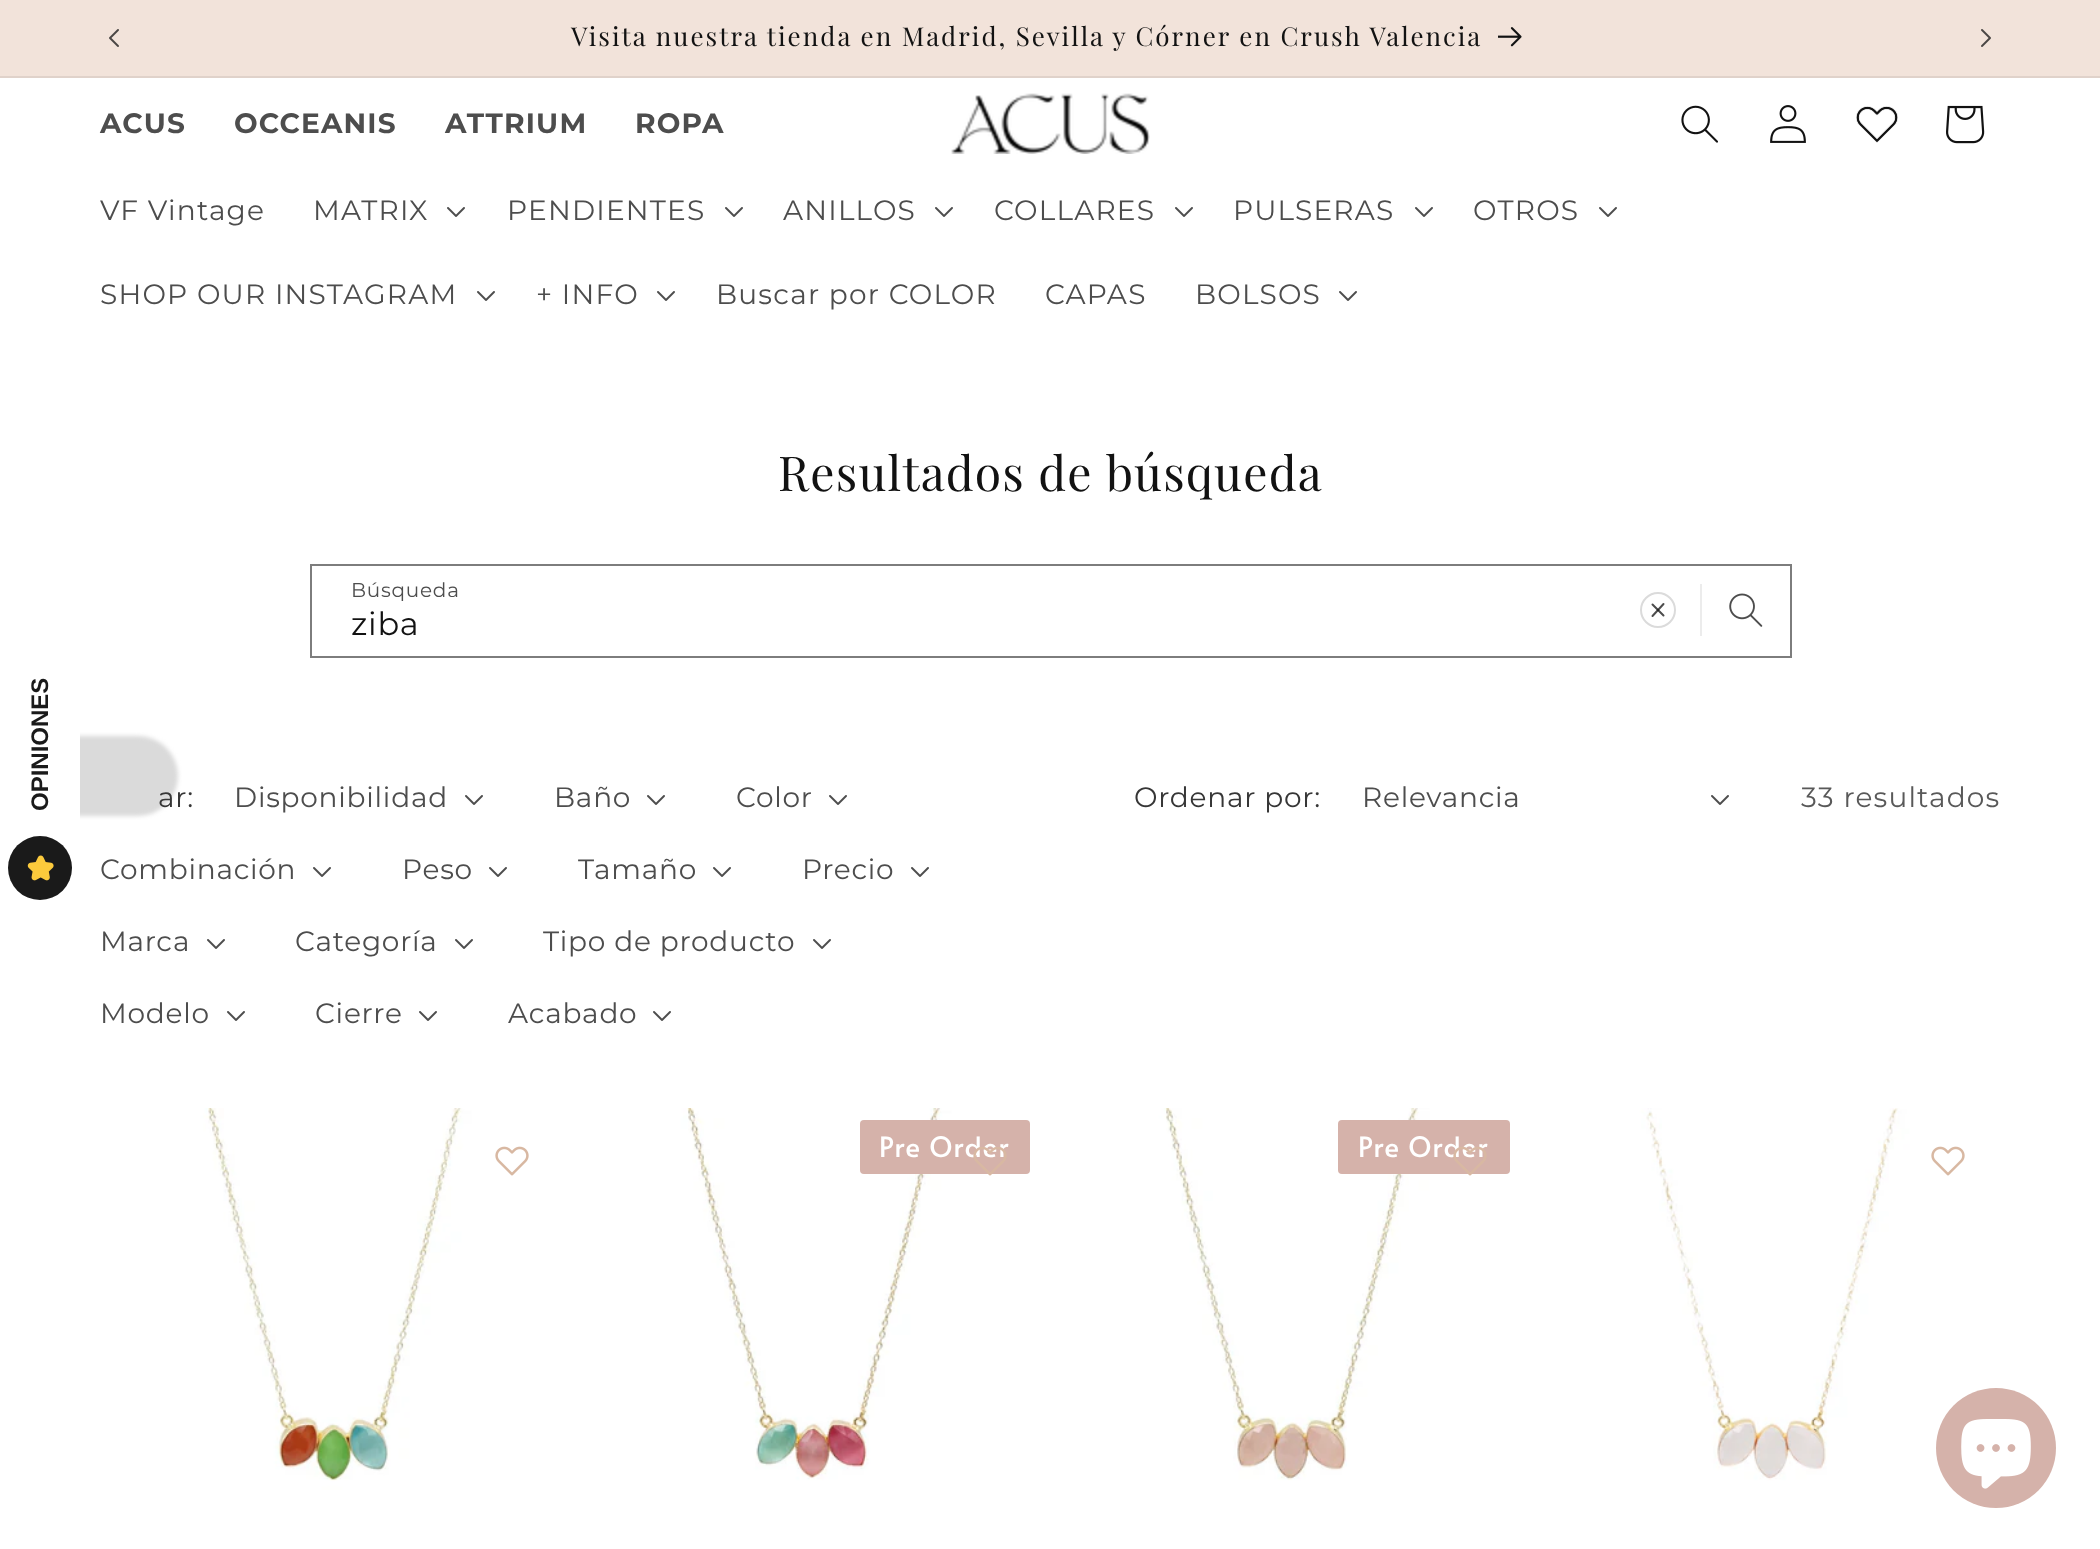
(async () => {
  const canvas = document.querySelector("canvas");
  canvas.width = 2100;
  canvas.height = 1549;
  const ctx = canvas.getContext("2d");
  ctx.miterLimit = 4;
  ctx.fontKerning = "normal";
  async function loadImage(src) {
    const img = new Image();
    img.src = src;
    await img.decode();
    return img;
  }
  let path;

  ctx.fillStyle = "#ffffff";
  ctx.fillRect(0, 0, 2100, 1549);
  ctx.fillStyle = "#f2e3da";
  ctx.fillRect(0, 0, 2100, 76);
  ctx.fillStyle = "#e0d2ca";
  ctx.fillRect(0, 76, 2100, 2);
  ctx.drawImage(await loadImage("img/1.png"), 109, 29, 10, 18);
  ctx.drawImage(await loadImage("img/2.png"), 1498, 27, 24, 20);
  ctx.drawImage(await loadImage("img/3.png"), 1981, 29, 10, 18);
  ctx.drawImage(await loadImage("img/4.png"), 951, 93, 199, 61);
  ctx.drawImage(await loadImage("img/5.png"), 1681, 105, 37, 38);
  ctx.drawImage(await loadImage("img/6.png"), 1770, 105, 36, 38);
  ctx.drawImage(await loadImage("img/7.png"), 1856, 106, 42, 37);
  ctx.drawImage(await loadImage("img/8.png"), 1946, 105, 39, 39);
  ctx.drawImage(await loadImage("img/9.png"), 447, 207, 18, 10);
  ctx.drawImage(await loadImage("img/9.png"), 725, 207, 18, 10);
  ctx.drawImage(await loadImage("img/9.png"), 935, 207, 18, 10);
  ctx.drawImage(await loadImage("img/9.png"), 1175, 207, 18, 10);
  ctx.drawImage(await loadImage("img/9.png"), 1415, 207, 18, 10);
  ctx.drawImage(await loadImage("img/9.png"), 1599, 207, 18, 10);
  ctx.drawImage(await loadImage("img/9.png"), 477, 291, 18, 10);
  ctx.drawImage(await loadImage("img/9.png"), 657, 291, 18, 10);
  ctx.drawImage(await loadImage("img/9.png"), 1339, 291, 18, 10);
  ctx.save();
  ctx.beginPath();
  ctx.rect(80, 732, 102, 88);
  ctx.clip();
  ctx.fillStyle = "#dadada";
  ctx.filter = "blur(2px)";
  ctx.beginPath();
  ctx.roundRect(-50, 736, 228, 80, 44);
  ctx.fill();
  ctx.filter = "none";
  ctx.restore();
  ctx.fillStyle = "#1a1a1a";
  ctx.beginPath();
  ctx.arc(40, 868, 32, 0, Math.PI * 2);
  ctx.fill();
  ctx.drawImage(await loadImage("img/10.png"), 27, 855, 27, 26);
  ctx.beginPath();
  ctx.arc(1658, 610, 17, 0, Math.PI * 2);
  ctx.strokeStyle = "#dbdbdb";
  ctx.lineWidth = 2;
  ctx.stroke();
  path = new Path2D("M1663.5 615.5L1652.5 604.5");
  ctx.strokeStyle = "#4d4d4d";
  ctx.lineCap = "round";
  ctx.lineJoin = "round";
  ctx.stroke(path);
  path = new Path2D("M1652.5 616L1663.5 604");
  ctx.strokeStyle = "rgba(18, 18, 18, 0.75)";
  ctx.stroke(path);
  ctx.fillStyle = "#ececec";
  ctx.fillRect(1700, 584, 2, 52);
  ctx.drawImage(await loadImage("img/11.png"), 1729, 593, 34, 34);
  ctx.strokeStyle = "#7d7d7d";
  ctx.lineJoin = "miter";
  ctx.strokeRect(311, 565, 1480, 92);
  ctx.drawImage(await loadImage("img/9.png"), 465, 795, 18, 10);
  ctx.drawImage(await loadImage("img/9.png"), 647, 795, 18, 10);
  ctx.drawImage(await loadImage("img/9.png"), 829, 795, 18, 10);
  ctx.drawImage(await loadImage("img/9.png"), 313, 867, 18, 10);
  ctx.drawImage(await loadImage("img/9.png"), 489, 867, 18, 10);
  ctx.drawImage(await loadImage("img/9.png"), 713, 867, 18, 10);
  ctx.drawImage(await loadImage("img/9.png"), 911, 867, 18, 10);
  ctx.drawImage(await loadImage("img/9.png"), 207, 939, 18, 10);
  ctx.drawImage(await loadImage("img/9.png"), 455, 939, 18, 10);
  ctx.drawImage(await loadImage("img/9.png"), 813, 939, 18, 10);
  ctx.drawImage(await loadImage("img/9.png"), 227, 1011, 18, 10);
  ctx.drawImage(await loadImage("img/9.png"), 419, 1011, 18, 10);
  ctx.drawImage(await loadImage("img/9.png"), 653, 1011, 18, 10);
  ctx.drawImage(await loadImage("img/9.png"), 1711, 795, 18, 10);
  ctx.drawImage(await loadImage("img/12.png"), 100, 1108, 464, 441);
  ctx.drawImage(await loadImage("img/13.png"), 495, 1146, 34, 30);
  ctx.drawImage(await loadImage("img/14.png"), 580, 1108, 462, 441);
  ctx.fillStyle = "#d5b2aa";
  ctx.beginPath();
  ctx.roundRect(860, 1120, 170, 54, 4);
  ctx.fill();
  ctx.drawImage(await loadImage("img/16.png"), 1058, 1108, 464, 441);
  ctx.beginPath();
  ctx.roundRect(1338, 1120, 172, 54, 4);
  ctx.fill();
  ctx.drawImage(await loadImage("img/18.png"), 1538, 1108, 462, 441);
  ctx.drawImage(await loadImage("img/13.png"), 1931, 1146, 34, 30);
  ctx.beginPath();
  ctx.arc(1996, 1448, 60, 0, Math.PI * 2);
  ctx.fill();
  ctx.drawImage(await loadImage("img/19.png"), 1961, 1419, 70, 70);
  ctx.letterSpacing = "2px";
  ctx.font = "26px Playfair Display";
  ctx.fillStyle = "#121212";
  ctx.fillText("Visita nuestra tienda en Madrid, Sevilla y Córner en Crush Valencia", 571, 46);
  ctx.letterSpacing = "1.2px";
  ctx.font = "bold 28px Montserrat";
  ctx.fillStyle = "#4d4d4d";
  for (const [text, x, y] of [
    ["ACUS", 100, 133],
    ["OCCEANIS", 234, 133],
    ["ATTRIUM", 445, 133],
    ["ROPA", 635, 133],
  ]) {
    ctx.fillText(text, x, y);
  }
  ctx.font = "28px Montserrat";
  for (const [text, x, y] of [
    ["VF Vintage", 100, 220],
    ["MATRIX", 313, 220],
    ["PENDIENTES", 507, 220],
    ["ANILLOS", 783, 220],
    ["COLLARES", 994, 220],
    ["PULSERAS", 1233, 220],
    ["OTROS", 1473, 220],
    ["SHOP OUR INSTAGRAM", 100, 304],
    ["+ INFO", 536, 304],
    ["Buscar por COLOR", 716, 304],
    ["CAPAS", 1045, 304],
    ["BOLSOS", 1195, 304],
  ]) {
    ctx.fillText(text, x, y);
  }
  ctx.letterSpacing = "0px";
  ctx.font = "bold 24px Liberation Sans";
  ctx.fillStyle = "#1a1a1a";
  ctx.save();
  ctx.translate(48, 811);
  ctx.rotate(-90 * Math.PI / 180);
  ctx.fillText("OPINIONES", 0, 0);
  ctx.restore();
  ctx.letterSpacing = "1.2px";
  ctx.font = "48px Playfair Display";
  ctx.fillStyle = "#121212";
  ctx.fillText("Resultados de búsqueda", 778, 491);
  ctx.letterSpacing = "0.75px";
  ctx.font = "20px Montserrat";
  ctx.fillStyle = "#4d4d4d";
  ctx.fillText("Búsqueda", 351, 597);
  ctx.font = "32px Montserrat";
  ctx.fillStyle = "#121212";
  ctx.fillText("ziba", 351, 635);
  ctx.font = "28px Montserrat";
  ctx.fillStyle = "#363636";
  ctx.fillText("ar:", 158, 807);
  ctx.fillStyle = "#4d4d4d";
  for (const [text, x, y] of [
    ["Disponibilidad", 234, 807],
    ["Baño", 554, 807],
    ["Color", 736, 807],
    ["Combinación", 100, 879],
    ["Peso", 402, 879],
    ["Tamaño", 578, 879],
    ["Precio", 802, 879],
    ["Marca", 100, 951],
    ["Categoría", 295, 951],
    ["Tipo de producto", 543, 951],
    ["Modelo", 100, 1023],
    ["Cierre", 315, 1023],
    ["Acabado", 508, 1023],
  ]) {
    ctx.fillText(text, x, y);
  }
  ctx.fillStyle = "#363636";
  ctx.fillText("Ordenar por:", 1134, 807);
  ctx.fillStyle = "#4d4d4d";
  ctx.fillText("Relevancia", 1362, 807);
  ctx.letterSpacing = "1.2px";
  ctx.fillStyle = "#595959";
  ctx.fillText("33 resultados", 1801, 807);
  ctx.font = "28px Alata";
  ctx.fillStyle = "#ffffff";
  ctx.fillText("Pre Order", 879, 1157);
  ctx.drawImage(await loadImage("img/15.png"), 973, 1147, 34, 29);
  ctx.fillText("Pre Order", 1358, 1157);
  ctx.drawImage(await loadImage("img/17.png"), 1453, 1146, 34, 30);
})();
